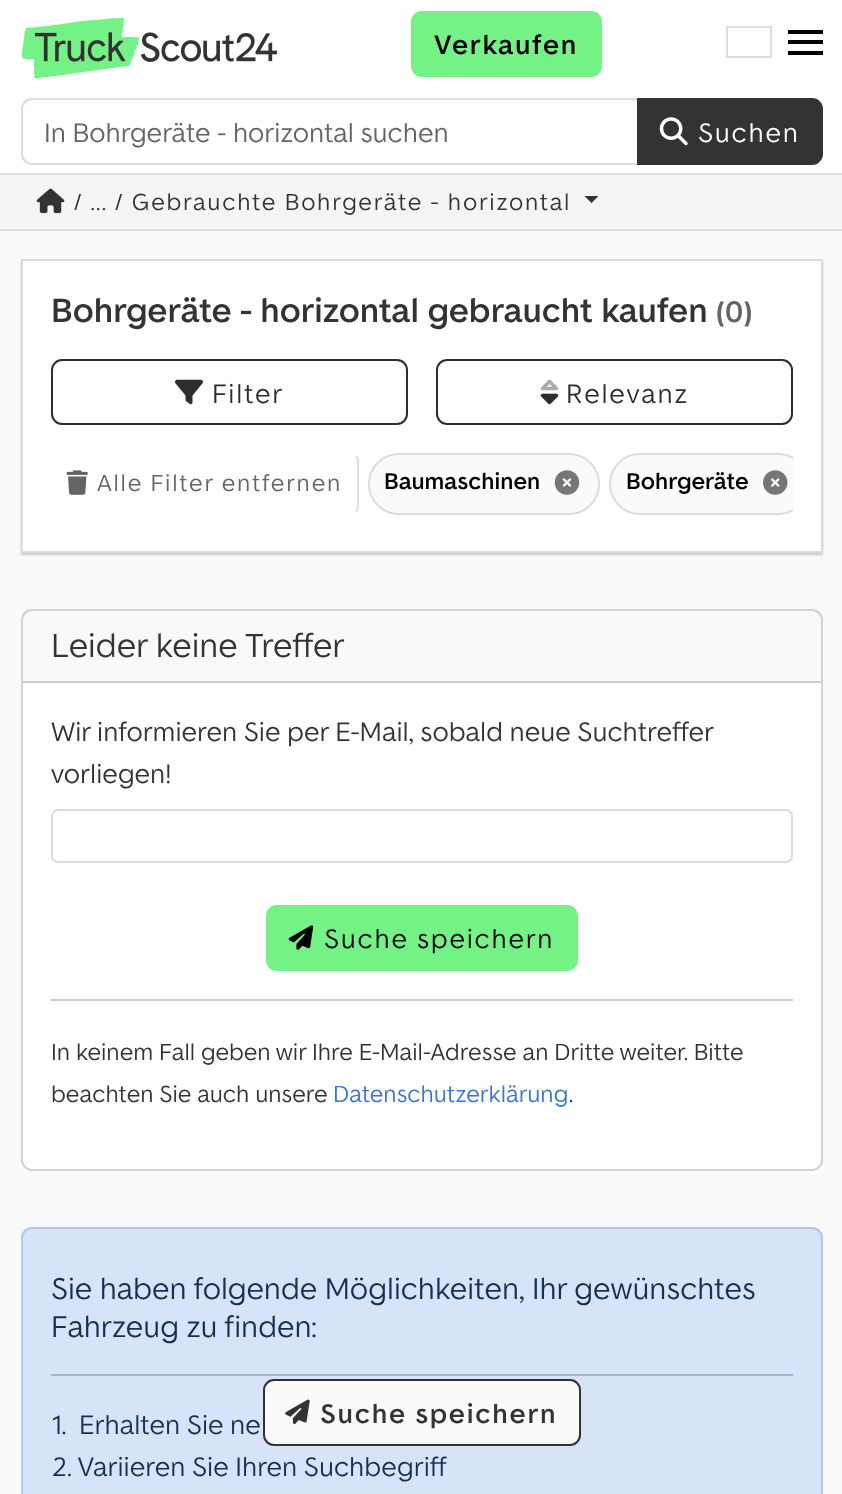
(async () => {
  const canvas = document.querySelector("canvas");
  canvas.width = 842;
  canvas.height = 1494;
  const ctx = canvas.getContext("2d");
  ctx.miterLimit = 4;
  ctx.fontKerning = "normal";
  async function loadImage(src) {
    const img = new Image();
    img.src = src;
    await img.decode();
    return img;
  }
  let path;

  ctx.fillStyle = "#ffffff";
  ctx.fillRect(0, 0, 842, 1494);
  ctx.fillStyle = "#dcdcdc";
  ctx.fillRect(0, 173, 842, 2);
  ctx.drawImage(await loadImage("img/1.png"), 21, 18, 256, 61);
  ctx.fillStyle = "#74f286";
  ctx.beginPath();
  ctx.roundRect(412, 12, 189, 64, 10);
  ctx.fill();
  ctx.strokeStyle = "#74f286";
  ctx.lineWidth = 2;
  ctx.stroke();
  ctx.strokeStyle = "#dcdcdc";
  ctx.strokeRect(727, 27, 44, 30);
  for (const [x, y, w, h, color] of [
    [788, 30, 35, 4, "#000000"],
    [788, 40, 35, 4, "#000000"],
    [788, 51, 35, 4, "#000000"],
  ]) {
    ctx.fillStyle = color;
    ctx.fillRect(x, y, w, h);
  }
  ctx.beginPath();
  ctx.roundRect(22, 99, 616, 65, [10, 0, 0, 10]);
  ctx.stroke();
  ctx.fillStyle = "#333333";
  ctx.beginPath();
  ctx.roundRect(638, 99, 184, 65, [0, 10, 10, 0]);
  ctx.fill();
  ctx.strokeStyle = "#333333";
  ctx.stroke();
  ctx.drawImage(await loadImage("img/2.png"), 659, 117, 29, 29);
  ctx.fillStyle = "#f5f5f5";
  ctx.fillRect(0, 175, 842, 54);
  ctx.fillStyle = "#dcdcdc";
  ctx.fillRect(0, 229, 842, 2);
  ctx.drawImage(await loadImage("img/3.png"), 36, 188, 29, 26);
  ctx.fillStyle = "#333333";
  path = new Path2D("M584.5 196H598.5L591.5 203Z");
  ctx.fill(path);
  ctx.fillStyle = "#fafafa";
  ctx.fillRect(0, 231, 842, 1263);
  ctx.fillStyle = "rgba(0, 0, 0, 0.2)";
  ctx.filter = "blur(1px)";
  ctx.beginPath();
  ctx.rect(21, 261, 802, 294);
  ctx.fill();
  ctx.filter = "none";
  ctx.fillStyle = "#ffffff";
  ctx.beginPath();
  ctx.rect(22, 260, 800, 292);
  ctx.fill();
  ctx.strokeStyle = "#dcdcdc";
  ctx.stroke();
  ctx.beginPath();
  ctx.roundRect(52, 360, 355, 64, 10);
  ctx.strokeStyle = "#2d2d2d";
  ctx.stroke();
  ctx.drawImage(await loadImage("img/4.png"), 175, 379, 28, 26);
  ctx.beginPath();
  ctx.roundRect(437, 360, 355, 64, 10);
  ctx.stroke();
  ctx.drawImage(await loadImage("img/5.png"), 540, 379, 19, 12);
  ctx.drawImage(await loadImage("img/6.png"), 540, 393, 19, 12);
  path = new Path2D("M356 456C357 457 358 458.5 358 460V507.5C358 509 357 510.5 356 512");
  ctx.strokeStyle = "#dcdcdc";
  ctx.lineWidth = 1.8;
  ctx.stroke(path);
  ctx.drawImage(await loadImage("img/7.png"), 66, 470, 22, 25);
  ctx.fillStyle = "#fafafa";
  ctx.beginPath();
  ctx.roundRect(369, 454, 230, 60, 30);
  ctx.fill();
  ctx.lineWidth = 2;
  ctx.stroke();
  ctx.drawImage(await loadImage("img/8.png"), 554, 470, 26, 25);
  ctx.save();
  ctx.beginPath();
  ctx.rect(51, 453, 742, 70);
  ctx.clip();
  ctx.beginPath();
  ctx.roundRect(610, 454, 198, 60, 30);
  ctx.fill();
  ctx.stroke();
  ctx.restore();
  ctx.drawImage(await loadImage("img/9.png"), 763, 470, 25, 25);
  ctx.fillStyle = "#ffffff";
  ctx.beginPath();
  ctx.roundRect(22, 610, 800, 560, 10);
  ctx.fill();
  ctx.strokeStyle = "#d2d2d2";
  ctx.stroke();
  ctx.fillStyle = "rgba(51, 51, 51, 0.03)";
  ctx.fillRect(23, 611, 798, 70);
  ctx.fillStyle = "#cdcdcd";
  ctx.fillRect(23, 681, 798, 2);
  ctx.beginPath();
  ctx.roundRect(52, 810, 740, 52, 6);
  ctx.strokeStyle = "#dcdcdc";
  ctx.stroke();
  ctx.fillStyle = "#74f286";
  ctx.beginPath();
  ctx.roundRect(267, 906, 310, 64, 10);
  ctx.fill();
  ctx.strokeStyle = "#74f286";
  ctx.stroke();
  ctx.drawImage(await loadImage("img/10.png"), 288, 925, 26, 25);
  ctx.fillStyle = "#cccccc";
  ctx.fillRect(51, 999, 742, 2);
  ctx.fillStyle = "#d7e3f6";
  ctx.beginPath();
  ctx.roundRect(22, 1228, 800, 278, 10);
  ctx.fill();
  ctx.strokeStyle = "#afc8ed";
  ctx.stroke();
  ctx.fillStyle = "#a7b6ce";
  ctx.fillRect(51, 1374, 742, 2);
  ctx.fillStyle = "#fafafa";
  ctx.beginPath();
  ctx.roundRect(264, 1380, 316, 65, 10);
  ctx.fill();
  ctx.strokeStyle = "#333333";
  ctx.stroke();
  ctx.drawImage(await loadImage("img/11.png"), 285, 1399, 25, 25);
  ctx.letterSpacing = "1.75px";
  ctx.font = "bold 28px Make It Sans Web";
  ctx.fillStyle = "#000000";
  ctx.fillText("Verkaufen", 434, 54);
  ctx.letterSpacing = "0px";
  ctx.font = "28px Make It Sans Web";
  ctx.fillStyle = "#646464";
  ctx.fillText("In Bohrgeräte - horizontal suchen", 44, 142);
  ctx.letterSpacing = "1.75px";
  ctx.fillStyle = "#ffffff";
  ctx.fillText("Suchen", 698, 142);
  ctx.font = "24.5px Make It Sans Web";
  ctx.fillStyle = "#333333";
  ctx.fillText("/ ... / Gebrauchte Bohrgeräte - horizontal", 74, 210);
  ctx.letterSpacing = "0px";
  ctx.font = "bold 35px Make It Sans Web";
  ctx.fillText("Bohrgeräte - horizontal gebraucht kaufen", 51, 322);
  ctx.font = "bold 31px Make It Sans Web";
  ctx.fillStyle = "#646464";
  ctx.fillText("(0)", 716, 322);
  ctx.letterSpacing = "1.75px";
  ctx.font = "28px Make It Sans Web";
  ctx.fillStyle = "#2d2d2d";
  ctx.fillText("Filter", 212, 403);
  ctx.fillText("Relevanz", 566, 403);
  ctx.font = "24.5px Make It Sans Web";
  ctx.fillStyle = "#646464";
  ctx.fillText("Alle Filter entfernen", 97, 491);
  ctx.letterSpacing = "0px";
  ctx.font = "bold 23.75px Make It Sans Web";
  ctx.fillStyle = "#000000";
  ctx.fillText("Baumaschinen", 384, 489);
  ctx.fillText("Bohrgeräte", 626, 489);
  ctx.font = "35px Make It Sans Web";
  ctx.fillStyle = "#333333";
  ctx.fillText("Leider keine Treffer", 51, 657);
  ctx.font = "28px Make It Sans Web";
  ctx.fillText("Wir informieren Sie per E-Mail, sobald neue Suchtreffer", 51, 741);
  ctx.fillText("vorliegen!", 51, 783);
  ctx.letterSpacing = "1.75px";
  ctx.fillStyle = "#000000";
  ctx.fillText("Suche speichern", 324, 948);
  ctx.letterSpacing = "0px";
  ctx.font = "24.5px Make It Sans Web";
  ctx.fillStyle = "#333333";
  ctx.fillText("In keinem Fall geben wir Ihre E-Mail-Adresse an Dritte weiter. Bitte", 51, 1060);
  ctx.fillText("beachten Sie auch unsere", 51, 1102);
  ctx.fillStyle = "#3875d1";
  ctx.fillText("Datenschutzerklärung", 333, 1102);
  ctx.fillStyle = "#333333";
  ctx.fillText(".", 569, 1102);
  ctx.font = "31.5px Make It Sans Web";
  ctx.fillStyle = "#162f54";
  ctx.fillText("Sie haben folgende Möglichkeiten, Ihr gewünschtes", 51, 1299);
  ctx.fillText("Fahrzeug zu finden:", 51, 1337);
  ctx.font = "28px Make It Sans Web";
  ctx.fillText("1.", 52, 1434);
  ctx.fillText("Erhalten Sie ne", 79, 1434);
  ctx.fillText("2. Variieren Sie Ihren Suchbegriff", 52, 1476);
  ctx.letterSpacing = "1.75px";
  ctx.font = "bold 28px Make It Sans Web";
  ctx.fillStyle = "#333333";
  ctx.fillText("Suche speichern", 320, 1423);
})();
